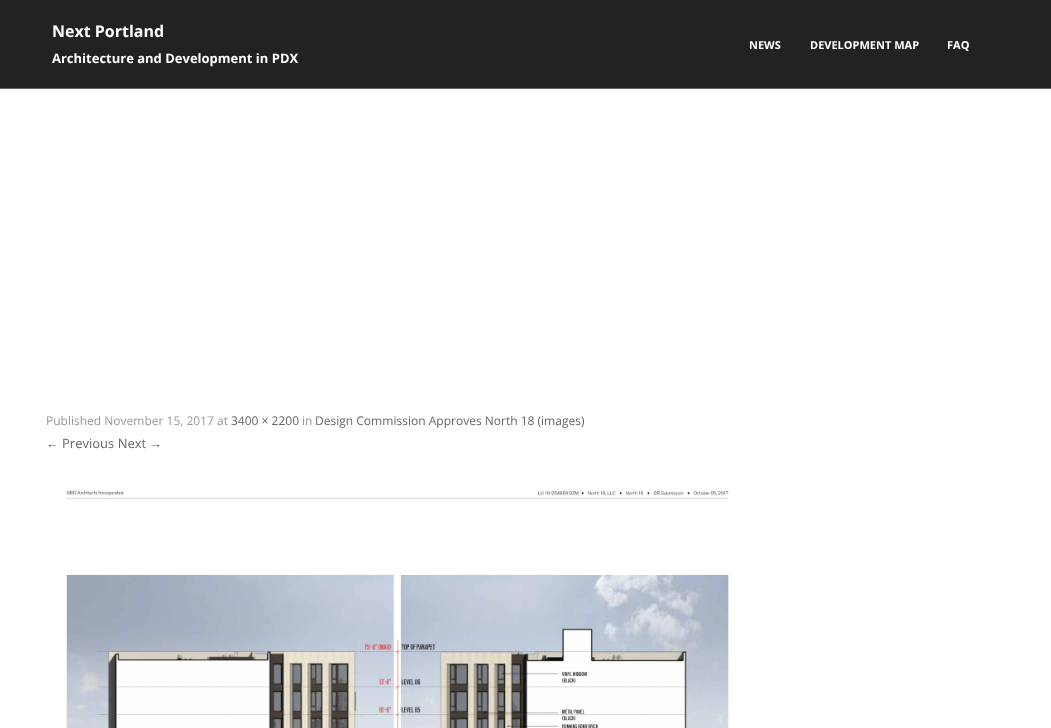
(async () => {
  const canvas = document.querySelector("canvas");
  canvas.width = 1051;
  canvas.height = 728;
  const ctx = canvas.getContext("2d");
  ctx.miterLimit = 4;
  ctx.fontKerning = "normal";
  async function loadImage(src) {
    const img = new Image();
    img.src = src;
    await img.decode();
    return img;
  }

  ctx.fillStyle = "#ffffff";
  ctx.fillRect(0, 0, 1051, 728);
  ctx.fillStyle = "#222222";
  ctx.fillRect(0, 0, 1051, 88);
  ctx.fillStyle = "#666666";
  ctx.fillRect(0, 88, 1051, 1);
  ctx.drawImage(await loadImage("img/1.png"), 66, 490, 663, 238);
  ctx.font = "bold 16px Open Sans";
  ctx.fillStyle = "#ffffff";
  ctx.fillText("Next Portland", 52, 37);
  ctx.font = "bold 13px Open Sans";
  ctx.fillText("Architecture and Development in PDX", 52, 63);
  ctx.font = "bold 11px Open Sans";
  for (const [text, x, y] of [
    ["NEWS", 749, 49],
    ["DEVELOPMENT MAP", 810, 49],
    ["FAQ", 947, 49],
  ]) {
    ctx.fillText(text, x, y);
  }
  ctx.font = "12px Open Sans";
  ctx.fillStyle = "#999999";
  ctx.fillText("Published November 15, 2017 at", 46, 425);
  ctx.fillStyle = "#666666";
  ctx.fillText("3400 × 2200", 231, 425);
  ctx.fillStyle = "#999999";
  ctx.fillText("in", 302, 425);
  ctx.fillStyle = "#666666";
  ctx.fillText("Design Commission Approves North 18 (images)", 315, 425);
  ctx.font = "13px Liberation Sans";
  ctx.fillText("←", 46, 448);
  ctx.font = "13px Open Sans";
  ctx.fillText("Previous Next", 62, 448);
  ctx.font = "13px Liberation Sans";
  ctx.fillText("→", 149, 448);
})();
